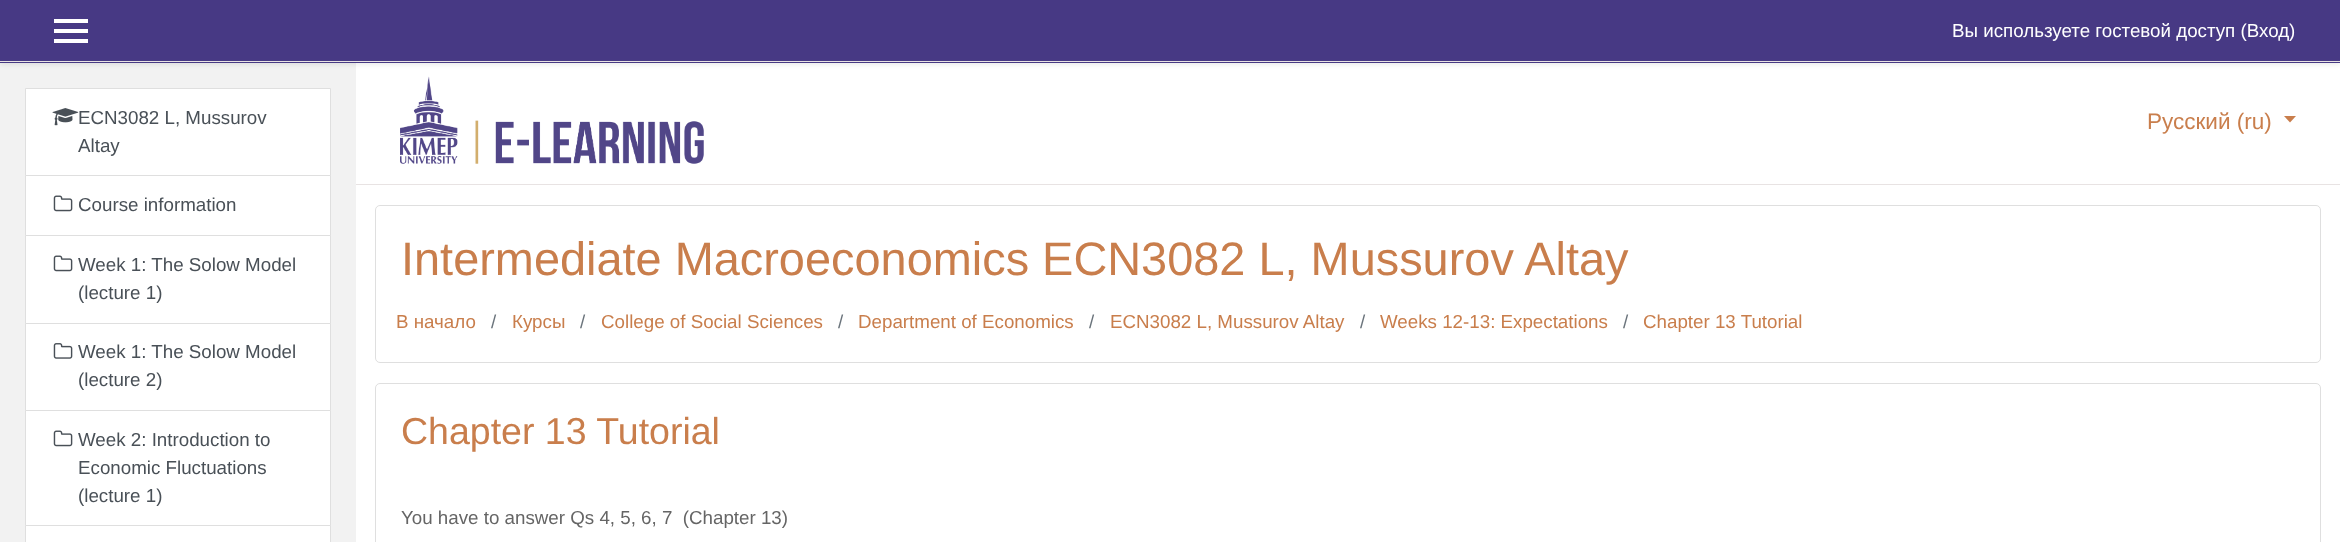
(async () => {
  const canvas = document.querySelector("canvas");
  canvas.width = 2340;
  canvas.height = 542;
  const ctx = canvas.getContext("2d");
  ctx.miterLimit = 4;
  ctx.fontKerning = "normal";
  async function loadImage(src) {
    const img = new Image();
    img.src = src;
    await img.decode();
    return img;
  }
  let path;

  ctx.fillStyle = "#ffffff";
  ctx.fillRect(0, 0, 2340, 542);
  ctx.fillStyle = "#f2f2f2";
  ctx.fillRect(0, 63, 356, 479);
  ctx.fillStyle = "rgba(0, 0, 0, 0.08)";
  ctx.filter = "blur(2.5px)";
  ctx.beginPath();
  ctx.rect(0, 3, 2340, 62);
  ctx.fill();
  ctx.filter = "none";
  for (const [x, y, w, h, color] of [
    [0, 0, 2340, 63, "#473984"],
    [0, 61, 2340, 1, "#e8e3e3"],
    [54, 19, 34, 4, "#ffffff"],
    [54, 29, 34, 4, "#ffffff"],
    [54, 39, 34, 4, "#ffffff"],
  ]) {
    ctx.fillStyle = color;
    ctx.fillRect(x, y, w, h);
  }
  ctx.beginPath();
  ctx.rect(25.5, 88.5, 305, 87);
  ctx.fill();
  ctx.strokeStyle = "#dfdfdf";
  ctx.stroke();
  ctx.drawImage(await loadImage("img/1.png"), 52, 108, 27, 18);
  ctx.beginPath();
  ctx.rect(25.5, 175.5, 305, 60);
  ctx.fill();
  ctx.stroke();
  ctx.drawImage(await loadImage("img/2.png"), 53, 195, 20, 17);
  ctx.beginPath();
  ctx.rect(25.5, 235.5, 305, 88);
  ctx.fill();
  ctx.stroke();
  ctx.drawImage(await loadImage("img/2.png"), 53, 255, 20, 17);
  ctx.beginPath();
  ctx.rect(25.5, 323.5, 305, 87);
  ctx.fill();
  ctx.stroke();
  ctx.drawImage(await loadImage("img/3.png"), 53, 343, 20, 16);
  ctx.beginPath();
  ctx.rect(25.5, 410.5, 305, 115);
  ctx.fill();
  ctx.stroke();
  ctx.drawImage(await loadImage("img/2.png"), 53, 430, 20, 17);
  ctx.beginPath();
  ctx.rect(25.5, 525.5, 305, 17);
  ctx.fill();
  ctx.stroke();
  ctx.fillStyle = "#e8e3e3";
  ctx.fillRect(356, 184, 1984, 1);
  ctx.drawImage(await loadImage("img/4.png"), 400, 76, 304, 88);
  ctx.fillStyle = "#c97e4c";
  path = new Path2D("M2284 116H2296L2290 122.5Z");
  ctx.fill(path);
  ctx.beginPath();
  ctx.roundRect(375.5, 205.5, 1945, 157, 4.5);
  ctx.stroke();
  ctx.beginPath();
  ctx.roundRect(375.5, 383.5, 1945, 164, 4.5);
  ctx.stroke();
  ctx.font = "18.75px Liberation Sans";
  ctx.fillStyle = "#ffffff";
  ctx.fillText("Вы используете гостевой доступ (Вход)", 1952, 37);
  ctx.fillStyle = "#495057";
  for (const [text, x, y] of [
    ["ECN3082 L, Mussurov", 78, 124],
    ["Altay", 78, 152],
    ["Course information", 78, 211],
    ["Week 1: The Solow Model", 78, 271],
    ["(lecture 1)", 78, 299],
    ["Week 1: The Solow Model", 78, 358],
    ["(lecture 2)", 78, 386],
    ["Week 2: Introduction to", 78, 446],
    ["Economic Fluctuations", 78, 474],
    ["(lecture 1)", 78, 502],
  ]) {
    ctx.fillText(text, x, y);
  }
  ctx.font = "22.5px Liberation Sans";
  ctx.fillStyle = "#c97e4c";
  ctx.fillText("Русский (ru)", 2147, 129);
  ctx.font = "46.9px Liberation Sans";
  ctx.fillText("Intermediate Macroeconomics ECN3082 L, Mussurov Altay", 401, 275);
  ctx.font = "18.75px Liberation Sans";
  ctx.fillText("В начало", 396, 328);
  ctx.fillStyle = "#6a737b";
  ctx.fillText("/", 491, 328);
  ctx.fillStyle = "#c97e4c";
  ctx.fillText("Курсы", 512, 328);
  ctx.fillStyle = "#6a737b";
  ctx.fillText("/", 580, 328);
  ctx.fillStyle = "#c97e4c";
  ctx.fillText("College of Social Sciences", 601, 328);
  ctx.fillStyle = "#6a737b";
  ctx.fillText("/", 838, 328);
  ctx.fillStyle = "#c97e4c";
  ctx.fillText("Department of Economics", 858, 328);
  ctx.fillStyle = "#6a737b";
  ctx.fillText("/", 1089, 328);
  ctx.fillStyle = "#c97e4c";
  ctx.fillText("ECN3082 L, Mussurov Altay", 1110, 328);
  ctx.fillStyle = "#6a737b";
  ctx.fillText("/", 1360, 328);
  ctx.fillStyle = "#c97e4c";
  ctx.fillText("Weeks 12-13: Expectations", 1380, 328);
  ctx.fillStyle = "#6a737b";
  ctx.fillText("/", 1623, 328);
  ctx.fillStyle = "#c97e4c";
  ctx.fillText("Chapter 13 Tutorial", 1643, 328);
  ctx.font = "37.5px Liberation Sans";
  ctx.fillText("Chapter 13 Tutorial", 401, 444);
  ctx.font = "18.75px Liberation Sans";
  ctx.fillStyle = "#656565";
  ctx.fillText("You have to answer Qs 4, 5, 6, 7  (Chapter 13)", 401, 524);
})();
